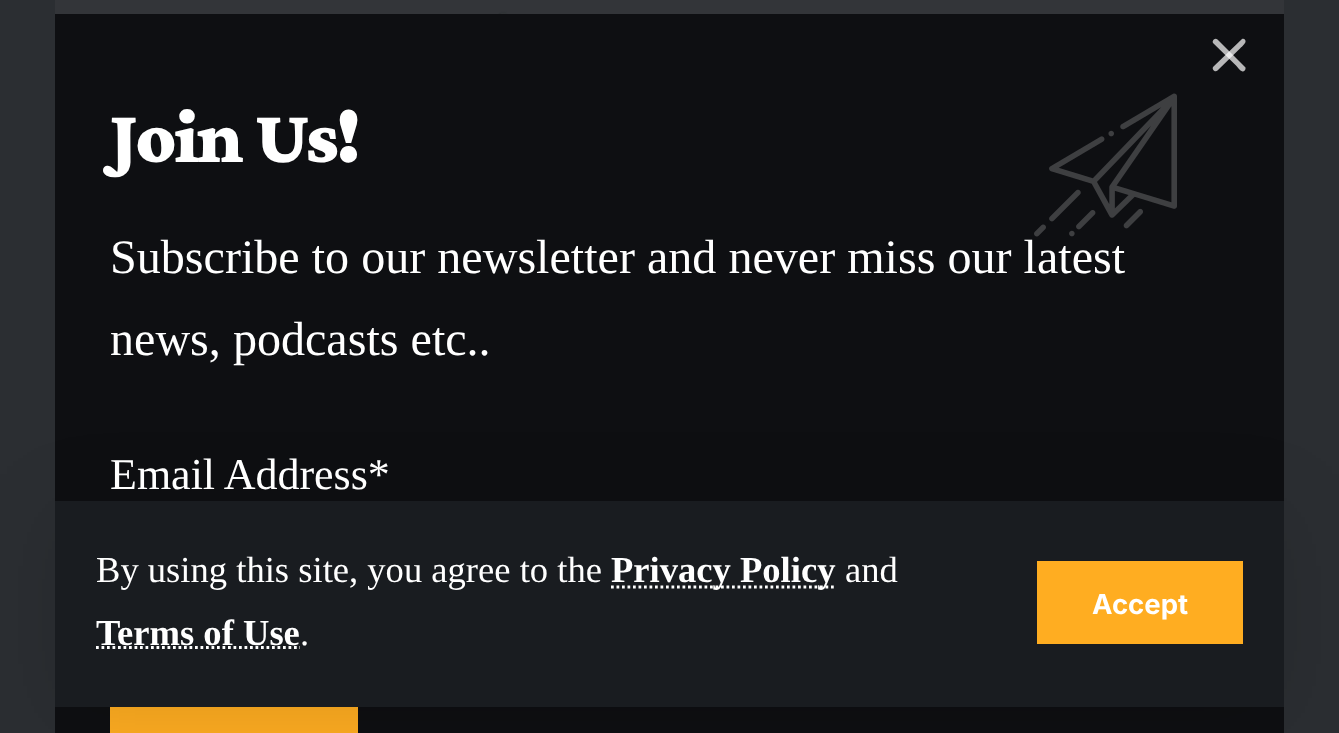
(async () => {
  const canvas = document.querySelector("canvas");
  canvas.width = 1339;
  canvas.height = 733;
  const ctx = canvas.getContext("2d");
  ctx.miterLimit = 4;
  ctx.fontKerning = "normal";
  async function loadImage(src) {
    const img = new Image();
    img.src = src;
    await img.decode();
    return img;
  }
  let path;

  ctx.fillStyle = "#2b2e32";
  ctx.fillRect(0, 0, 1339, 733);
  ctx.fillStyle = "#0e0f12";
  ctx.fillRect(55, 14, 1229, 719);
  ctx.fillStyle = "#b7b7b8";
  path = new Path2D("M1217.5 39.5L1245.5 67.5C1246 69.5 1244.5 71.5 1242.5 71.5C1240 71 1236.5 66 1236.5 66L1213.5 43.5C1211 41 1215 37 1217.5 39.5Z");
  ctx.fill(path);
  ctx.fillStyle = "rgba(255, 255, 255, 0.7)";
  path = new Path2D("M1213.5 66.5L1242 39C1244 38 1246 40 1245.5 42C1245 44 1240.5 48 1240.5 48L1217.5 70.5C1215 73 1211 69 1213.5 66.5Z");
  ctx.fill(path);
  ctx.drawImage(await loadImage("img/2.png"), 498, 11, 10, 3);
  ctx.fillStyle = "rgba(136, 136, 136, 0.09)";
  ctx.fillRect(55, 0, 1229, 14);
  ctx.drawImage(await loadImage("img/1.png"), 1034, 93, 143, 144);
  ctx.fillStyle = "#ffad21";
  ctx.fillRect(110, 707, 248, 26);
  ctx.fillStyle = "rgba(0, 0, 0, 0.12)";
  ctx.filter = "blur(41px)";
  ctx.beginPath();
  ctx.rect(55, 512, 1229, 206);
  ctx.fill();
  ctx.filter = "none";
  ctx.fillStyle = "#191c20";
  ctx.fillRect(55, 501, 1229, 206);
  path = new Path2D("M611 587H835.5");
  ctx.strokeStyle = "#ffffff";
  ctx.lineWidth = 2.8;
  ctx.setLineDash([2.75, 2.75]);
  ctx.stroke(path);
  path = new Path2D("M96 647.5H300");
  ctx.stroke(path);
  ctx.fillStyle = "#ffad21";
  ctx.fillRect(1037, 561, 206, 83);
  ctx.letterSpacing = "-1.75px";
  ctx.font = "900 77px Crimson Pro";
  ctx.fillStyle = "#ffffff";
  ctx.fillText("Join Us!", 110, 162);
  ctx.letterSpacing = "0px";
  ctx.font = "48.1px Liberation Serif";
  ctx.fillText("Subscribe to our newsletter and never miss our latest", 110, 273);
  ctx.fillText("news, podcasts etc..", 110, 355);
  ctx.font = "44px Liberation Serif";
  ctx.fillText("Email Address*", 110, 489);
  ctx.font = "36.6px Liberation Serif";
  ctx.fillText("By using this site, you agree to the", 96, 582);
  ctx.font = "bold 36.6px Liberation Serif";
  ctx.fillText("Privacy Policy", 611, 582);
  ctx.font = "36.6px Liberation Serif";
  ctx.fillText("and", 845, 582);
  ctx.font = "bold 36.6px Liberation Serif";
  ctx.fillText("Terms of Use", 96, 645);
  ctx.font = "36.6px Liberation Serif";
  ctx.fillText(".", 300, 645);
  ctx.font = "bold 27.5px Inter";
  ctx.fillText("Accept", 1092, 614);
})();
